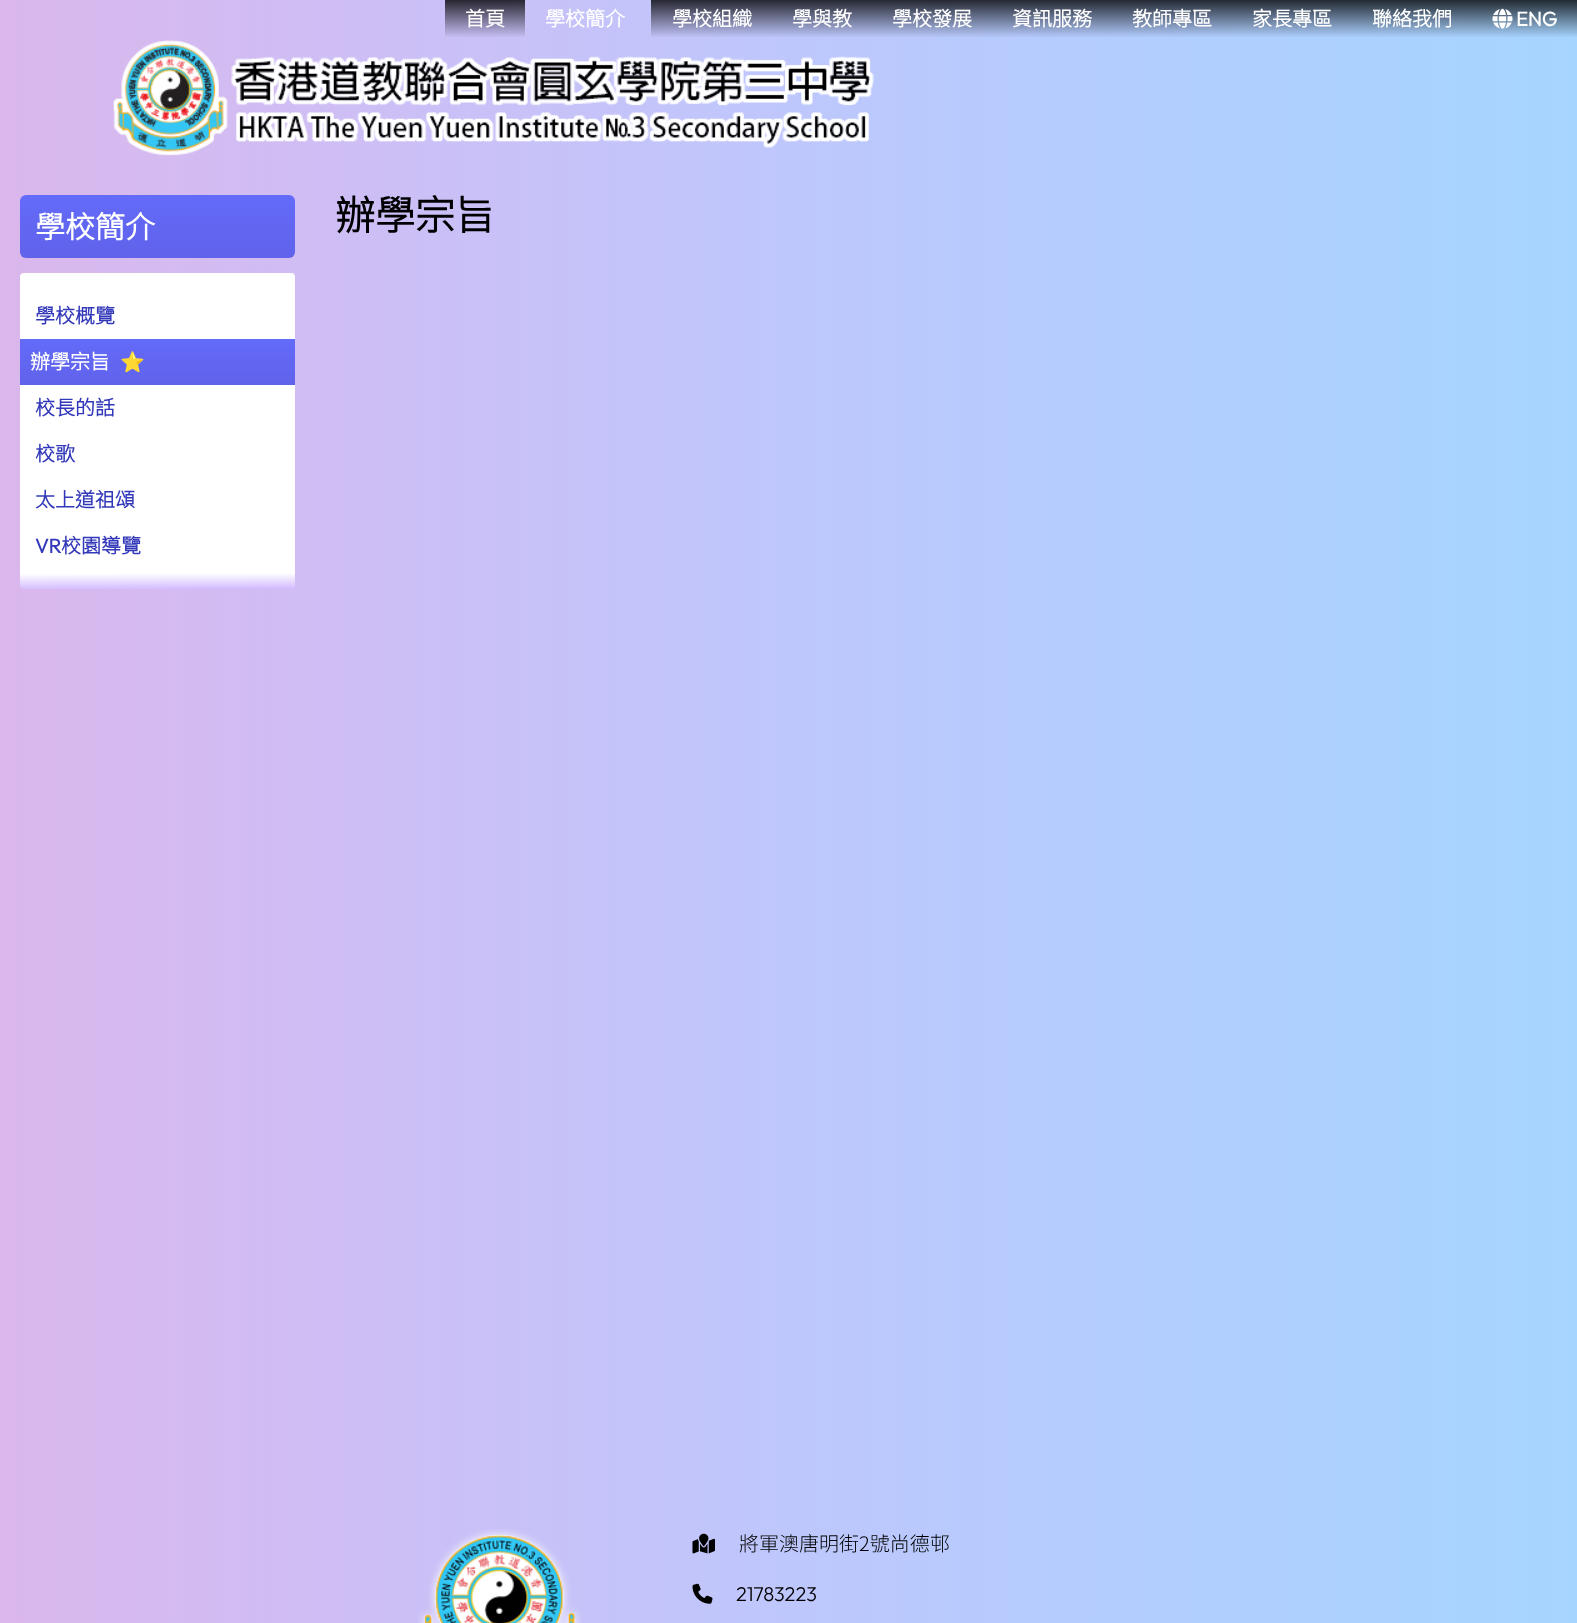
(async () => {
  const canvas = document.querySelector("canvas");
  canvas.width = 1577;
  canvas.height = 1623;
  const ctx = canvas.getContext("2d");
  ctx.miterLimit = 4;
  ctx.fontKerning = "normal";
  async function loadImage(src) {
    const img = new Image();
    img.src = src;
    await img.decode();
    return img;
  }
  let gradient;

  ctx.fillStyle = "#ffffff";
  ctx.fillRect(0, 0, 1577, 1623);
  gradient = ctx.createLinearGradient(0, 946, 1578, 946);
  gradient.addColorStop(0, "#dab7ec");
  gradient.addColorStop(0.25, "#ccbff6");
  gradient.addColorStop(0.5, "#bec7fc");
  gradient.addColorStop(0.75, "#b1ceff");
  gradient.addColorStop(1, "#a6d5ff");
  ctx.fillStyle = gradient;
  ctx.fillRect(0, 0, 1577, 1623);
  gradient = ctx.createLinearGradient(485, 0, 485, 38);
  gradient.addColorStop(0, "rgba(0, 0, 0, 0.8)");
  gradient.addColorStop(1, "rgba(0, 0, 0, 0)");
  ctx.fillStyle = gradient;
  ctx.fillRect(445, 0, 80, 37);
  gradient = ctx.createLinearGradient(711, 0, 711, 38);
  gradient.addColorStop(0, "rgba(0, 0, 0, 0.8)");
  gradient.addColorStop(1, "rgba(0, 0, 0, 0)");
  ctx.fillStyle = gradient;
  ctx.fillRect(651, 0, 120, 37);
  gradient = ctx.createLinearGradient(821, 0, 821, 38);
  gradient.addColorStop(0, "rgba(0, 0, 0, 0.8)");
  gradient.addColorStop(1, "rgba(0, 0, 0, 0)");
  ctx.fillStyle = gradient;
  ctx.fillRect(771, 0, 100, 37);
  gradient = ctx.createLinearGradient(931, 0, 931, 38);
  gradient.addColorStop(0, "rgba(0, 0, 0, 0.8)");
  gradient.addColorStop(1, "rgba(0, 0, 0, 0)");
  ctx.fillStyle = gradient;
  ctx.fillRect(871, 0, 120, 37);
  gradient = ctx.createLinearGradient(1051, 0, 1051, 38);
  gradient.addColorStop(0, "rgba(0, 0, 0, 0.8)");
  gradient.addColorStop(1, "rgba(0, 0, 0, 0)");
  ctx.fillStyle = gradient;
  ctx.fillRect(991, 0, 120, 37);
  gradient = ctx.createLinearGradient(1171, 0, 1171, 38);
  gradient.addColorStop(0, "rgba(0, 0, 0, 0.8)");
  gradient.addColorStop(1, "rgba(0, 0, 0, 0)");
  ctx.fillStyle = gradient;
  ctx.fillRect(1111, 0, 120, 37);
  gradient = ctx.createLinearGradient(1292, 0, 1292, 38);
  gradient.addColorStop(0, "rgba(0, 0, 0, 0.8)");
  gradient.addColorStop(1, "rgba(0, 0, 0, 0)");
  ctx.fillStyle = gradient;
  ctx.fillRect(1231, 0, 122, 37);
  gradient = ctx.createLinearGradient(1413, 0, 1413, 38);
  gradient.addColorStop(0, "rgba(0, 0, 0, 0.8)");
  gradient.addColorStop(1, "rgba(0, 0, 0, 0)");
  ctx.fillStyle = gradient;
  ctx.fillRect(1353, 0, 120, 37);
  gradient = ctx.createLinearGradient(1525, 0, 1525, 38);
  gradient.addColorStop(0, "rgba(0, 0, 0, 0.8)");
  gradient.addColorStop(1, "rgba(0, 0, 0, 0)");
  ctx.fillStyle = gradient;
  ctx.fillRect(1473, 0, 104, 37);
  ctx.drawImage(await loadImage("img/1.png"), 1492, 8, 21, 21);
  ctx.drawImage(await loadImage("img/2.png"), 113, 40, 761, 116);
  gradient = ctx.createLinearGradient(158, 195, 158, 258);
  gradient.addColorStop(0, "#636bf9");
  gradient.addColorStop(1, "#6062ea");
  ctx.fillStyle = gradient;
  ctx.beginPath();
  ctx.roundRect(20, 195, 275, 63, 6);
  ctx.fill();
  gradient = ctx.createLinearGradient(157, 273, 158, 589);
  gradient.addColorStop(0.95, "#ffffff");
  gradient.addColorStop(1, "#d3bcff");
  ctx.fillStyle = gradient;
  ctx.beginPath();
  ctx.roundRect(20, 273, 275, 316, 4);
  ctx.fill();
  gradient = ctx.createLinearGradient(158, 339, 158, 385);
  gradient.addColorStop(0, "#636bf9");
  gradient.addColorStop(1, "#6062ea");
  ctx.fillStyle = gradient;
  ctx.fillRect(20, 339, 275, 46);
  ctx.drawImage(await loadImage("img/3.png"), 418, 1529, 163, 94);
  ctx.drawImage(await loadImage("img/4.png"), 692, 1533, 23, 21);
  ctx.drawImage(await loadImage("img/5.png"), 692, 1583, 21, 21);
  ctx.font = "bold 20px Noto Sans HK";
  ctx.fillStyle = "#ffffff";
  for (const [text, x, y] of [
    ["首頁", 465, 26],
    ["學校簡介", 545, 26],
    ["學校組織", 672, 26],
    ["學與教", 792, 26],
    ["學校發展", 892, 26],
    ["資訊服務", 1012, 26],
    ["教師專區", 1132, 26],
    ["家長專區", 1252, 26],
    ["聯絡我們", 1372, 26],
  ]) {
    ctx.fillText(text, x, y);
  }
  ctx.font = "bold 20px Outfit";
  ctx.fillText("ENG", 1516, 26);
  ctx.font = "bold 30px Noto Sans HK";
  ctx.fillText("學校簡介", 35, 238);
  ctx.font = "bold 20px Noto Sans HK";
  ctx.fillStyle = "#3238b9";
  ctx.fillText("學校概覽", 35, 323);
  ctx.fillStyle = "#ffffff";
  ctx.fillText("辦學宗旨", 30, 369);
  ctx.font = "bold 20px Noto Color Emoji";
  ctx.fillText("⭐", 120, 369);
  ctx.font = "bold 20px Noto Sans HK";
  ctx.fillStyle = "#3238b9";
  for (const [text, x, y] of [
    ["校長的話", 35, 415],
    ["校歌", 35, 461],
    ["太上道祖頌", 35, 507],
  ]) {
    ctx.fillText(text, x, y);
  }
  ctx.font = "bold 20px Outfit";
  ctx.fillText("VR", 35, 553);
  ctx.font = "bold 20px Noto Sans HK";
  ctx.fillText("校園導覽", 61, 553);
  ctx.font = "bold 40px Noto Sans HK";
  ctx.fillStyle = "#000000";
  ctx.fillText("辦學宗旨", 335, 230);
  ctx.font = "100 20px Noto Sans HK";
  ctx.fillText("將軍澳唐明街2號尚德邨", 739, 1551);
  ctx.font = "100 20px Outfit";
  ctx.fillText("21783223", 736, 1601);
})();
